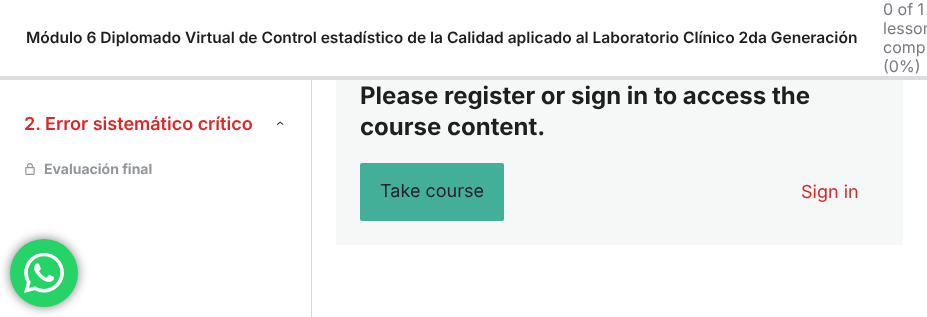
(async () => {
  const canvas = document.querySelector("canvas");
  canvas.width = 927;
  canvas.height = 317;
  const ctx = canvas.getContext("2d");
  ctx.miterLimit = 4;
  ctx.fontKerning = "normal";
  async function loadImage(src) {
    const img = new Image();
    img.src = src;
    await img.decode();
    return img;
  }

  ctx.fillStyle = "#ffffff";
  ctx.fillRect(0, 0, 927, 317);
  ctx.fillStyle = "#dcdcde";
  ctx.fillRect(0, 76, 927, 4);
  ctx.fillStyle = "#d8d8d8";
  ctx.fillRect(311, 80, 1, 237);
  ctx.drawImage(await loadImage("img/1.png"), 277, 121, 7, 4);
  ctx.drawImage(await loadImage("img/2.png"), 25, 163, 10, 12);
  ctx.fillStyle = "#f6f7f7";
  ctx.fillRect(336, 80, 567, 165);
  ctx.fillStyle = "#43af99";
  ctx.beginPath();
  ctx.roundRect(360, 163, 144, 58, 2);
  ctx.fill();
  ctx.fillStyle = "rgba(0, 0, 0, 0.5)";
  ctx.filter = "blur(5.5px)";
  ctx.beginPath();
  ctx.roundRect(10, 239, 68, 68, 34);
  ctx.fill();
  ctx.filter = "none";
  ctx.fillStyle = "#25d366";
  ctx.beginPath();
  ctx.arc(44, 273, 34, 0, Math.PI * 2);
  ctx.fill();
  ctx.drawImage(await loadImage("img/3.png"), 24, 253, 40, 40);
  ctx.font = "600 15.55px Inter";
  ctx.fillStyle = "#1e1e1e";
  ctx.fillText("Módulo 6 Diplomado Virtual de Control estadístico de la Calidad aplicado al Laboratorio Clínico 2da Generación", 26, 43);
  ctx.font = "16px Inter";
  ctx.fillStyle = "#787c82";
  for (const [text, x, y] of [
    ["0 of 1", 883, 15],
    ["lesson", 883, 34],
    ["comp", 883, 53],
    ["(0%)", 883, 72],
  ]) {
    ctx.fillText(text, x, y);
  }
  ctx.font = "600 18px Inter";
  ctx.fillStyle = "#dd2727";
  ctx.fillText("2. Error sistemático crítico", 24, 130);
  ctx.font = "bold 14px Inter";
  ctx.fillStyle = "#93969b";
  ctx.fillText("Evaluación final", 44, 174);
  ctx.font = "bold 24px Inter";
  ctx.fillStyle = "#1e1e1e";
  ctx.fillText("Please register or sign in to access the", 360, 104);
  ctx.fillText("course content.", 360, 135);
  ctx.font = "18px Inter";
  ctx.fillStyle = "#26212e";
  ctx.fillText("Take course", 380, 197);
  ctx.fillStyle = "#dd2727";
  ctx.fillText("Sign in", 801, 198);
})();
